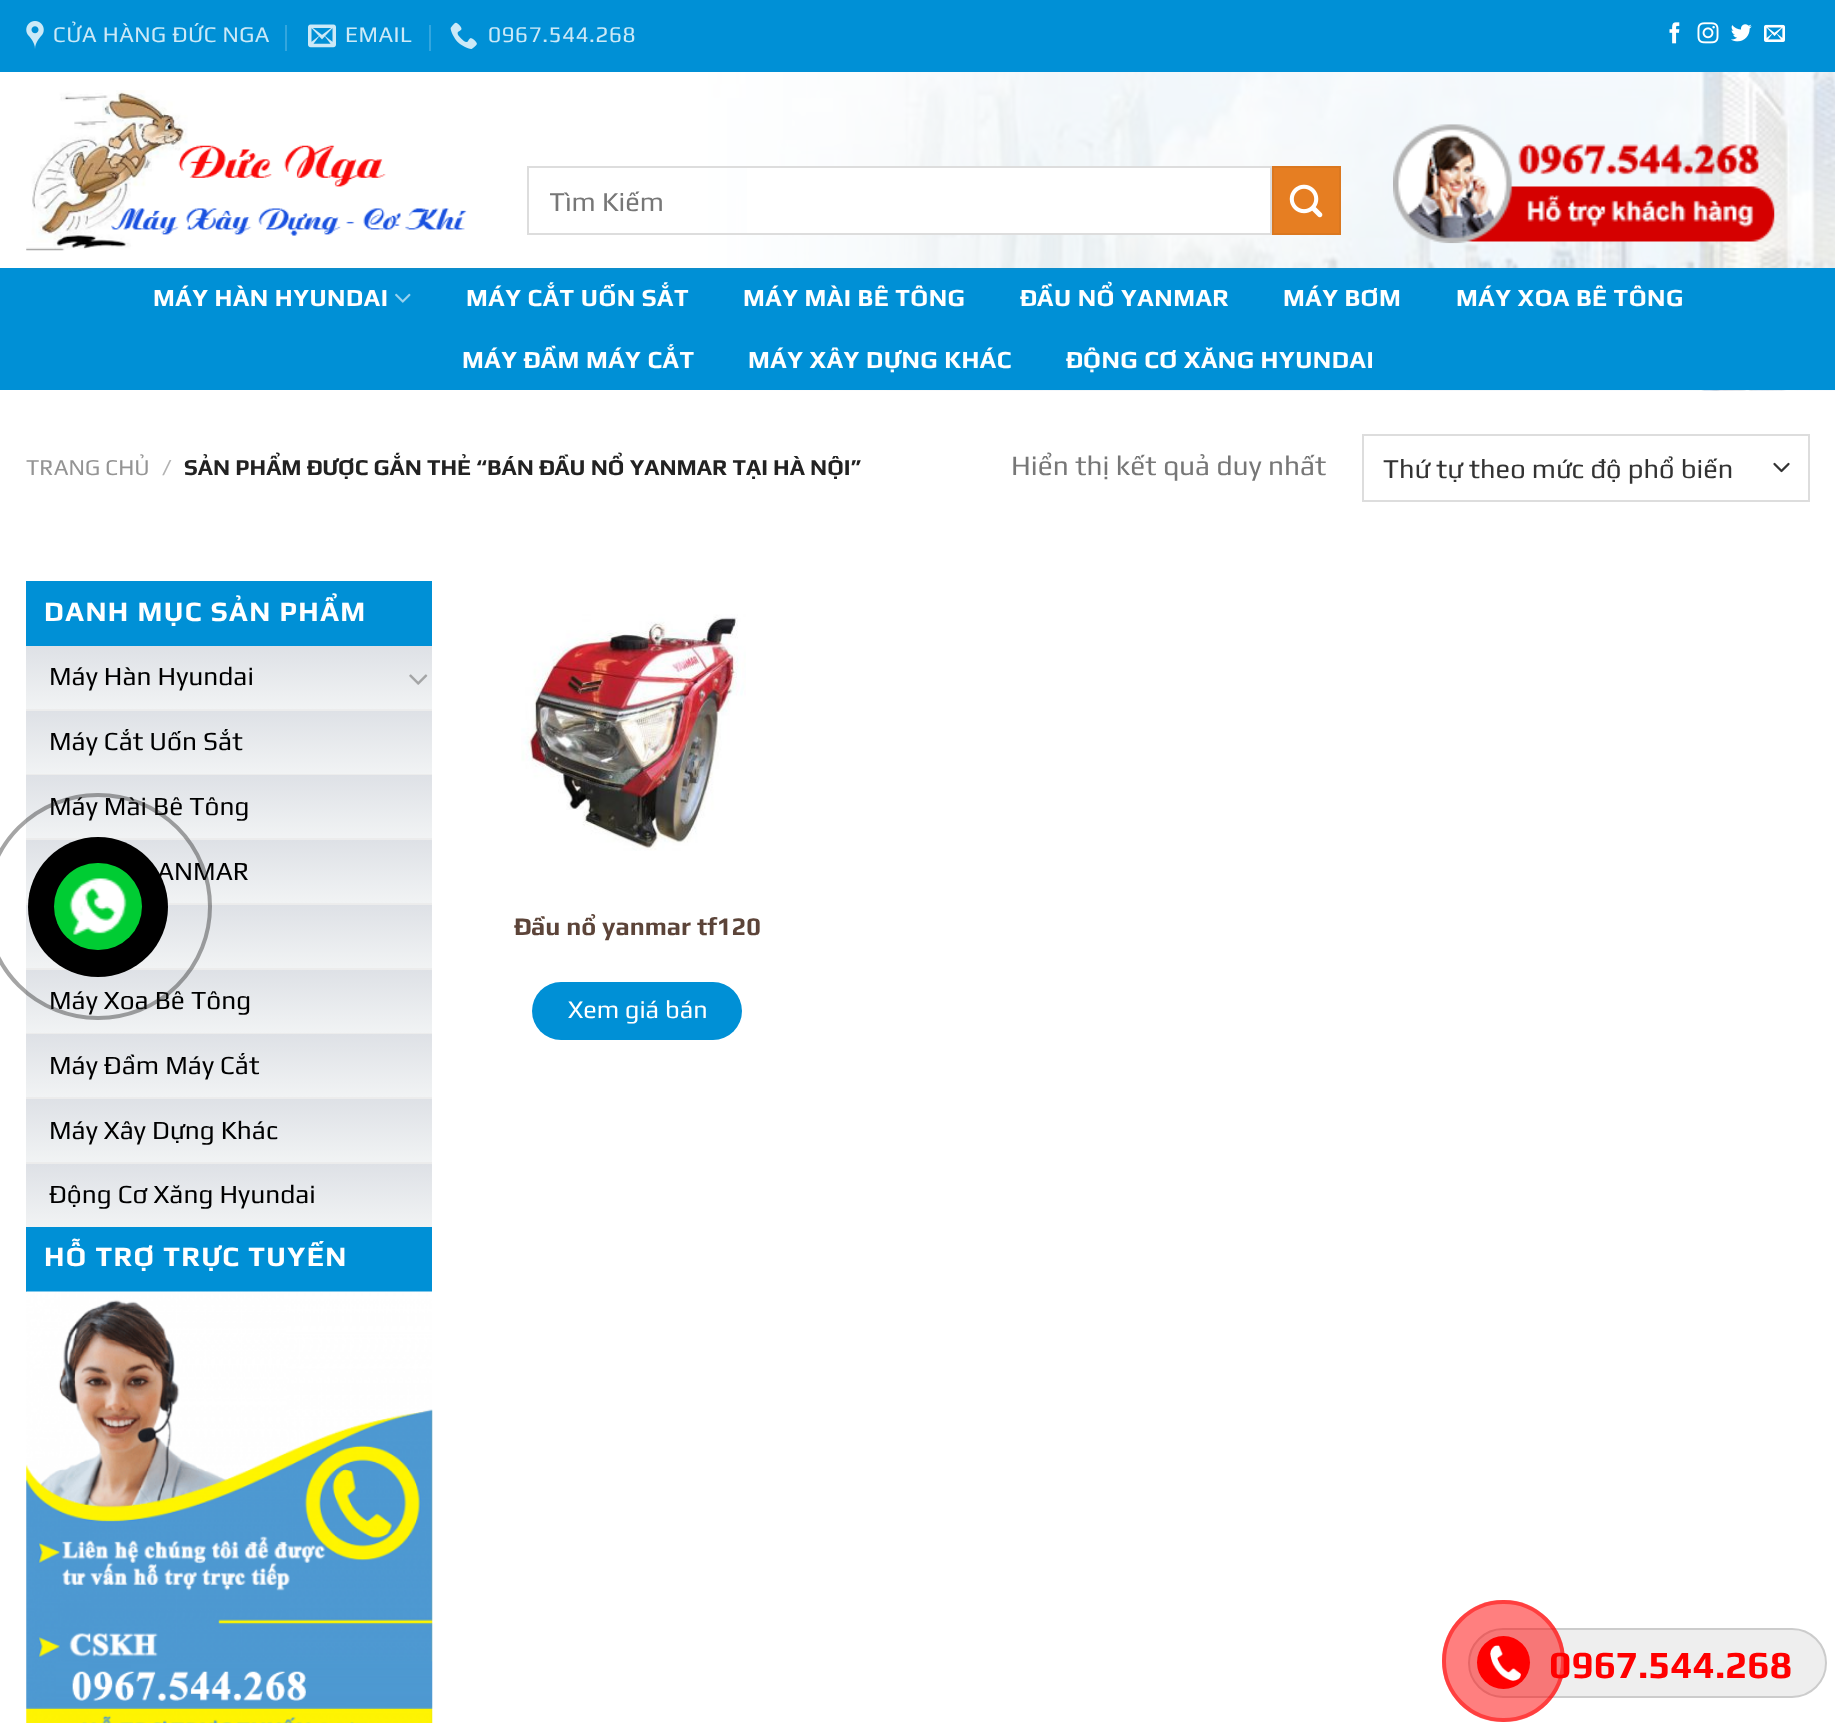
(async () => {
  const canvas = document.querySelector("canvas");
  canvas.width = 1835;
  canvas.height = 1723;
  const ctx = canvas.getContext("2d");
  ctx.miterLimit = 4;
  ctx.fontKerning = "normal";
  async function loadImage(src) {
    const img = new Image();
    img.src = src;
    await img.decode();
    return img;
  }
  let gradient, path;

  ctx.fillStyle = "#ffffff";
  ctx.fillRect(0, 0, 1835, 1723);
  ctx.fillStyle = "#0090d6";
  ctx.fillRect(0, 0, 1835, 72);
  ctx.drawImage(await loadImage("img/1.png"), 26, 21, 18, 28);
  ctx.fillStyle = "#33a6de";
  ctx.fillRect(285, 25, 2, 26);
  ctx.drawImage(await loadImage("img/2.png"), 308, 24, 28, 24);
  ctx.fillRect(429, 25, 2, 26);
  ctx.drawImage(await loadImage("img/3.png"), 450, 22, 27, 27);
  ctx.drawImage(await loadImage("img/4.png"), 1669, 22, 11, 22);
  ctx.drawImage(await loadImage("img/5.png"), 1697, 22, 22, 22);
  ctx.drawImage(await loadImage("img/6.png"), 1731, 24, 21, 18);
  ctx.drawImage(await loadImage("img/7.png"), 1764, 24, 21, 18);
  ctx.drawImage(await loadImage("img/8.png"), 26, 90, 441, 161);
  ctx.drawImage(await loadImage("img/11.png"), 703, 72, 1132, 319);
  ctx.fillStyle = "#ffffff";
  ctx.fillRect(747, 168, 523, 65);
  ctx.strokeStyle = "#dddddd";
  ctx.lineWidth = 2;
  ctx.strokeRect(528, 167, 743, 67);
  ctx.fillStyle = "#e67e22";
  ctx.beginPath();
  ctx.rect(1273, 167, 67, 67);
  ctx.fill();
  ctx.strokeStyle = "#db7820";
  ctx.stroke();
  ctx.drawImage(await loadImage("img/9.png"), 1289, 184, 34, 34);
  ctx.drawImage(await loadImage("img/10.png"), 1393, 124, 382, 120);
  ctx.fillStyle = "#0090d6";
  ctx.fillRect(0, 268, 1835, 122);
  ctx.fillStyle = "#0c8dcc";
  ctx.fillRect(26, 268, 1784, 2);
  ctx.drawImage(await loadImage("img/12.png"), 395, 293, 16, 10);
  path = new Path2D("M1774.5 464L1781.5 471L1788.5 464");
  ctx.strokeStyle = "#333333";
  ctx.lineWidth = 2.3;
  ctx.lineCap = "round";
  ctx.lineJoin = "round";
  ctx.stroke(path);
  ctx.strokeStyle = "#dddddd";
  ctx.lineWidth = 2;
  ctx.lineJoin = "miter";
  ctx.strokeRect(1363, 435, 446, 66);
  ctx.fillStyle = "#0090d6";
  ctx.fillRect(26, 581, 406, 65);
  gradient = ctx.createLinearGradient(229, 646, 229, 709);
  gradient.addColorStop(0, "#dee1e6");
  gradient.addColorStop(1, "#f1f3f4");
  ctx.fillStyle = gradient;
  ctx.fillRect(26, 646, 406, 63);
  ctx.drawImage(await loadImage("img/13.png"), 409, 674, 19, 11);
  gradient = ctx.createLinearGradient(229, 711, 229, 774);
  gradient.addColorStop(0, "#dee1e6");
  gradient.addColorStop(1, "#f1f3f4");
  ctx.fillStyle = gradient;
  ctx.fillRect(26, 711, 406, 63);
  ctx.fillStyle = "#ececec";
  ctx.fillRect(26, 709, 406, 2);
  ctx.fillRect(26, 774, 406, 1);
  gradient = ctx.createLinearGradient(229, 775, 229, 838);
  gradient.addColorStop(0, "#dee1e6");
  gradient.addColorStop(1, "#f1f3f4");
  ctx.fillStyle = gradient;
  ctx.fillRect(26, 775, 406, 63);
  gradient = ctx.createLinearGradient(229, 840, 229, 903);
  gradient.addColorStop(0, "#dee1e6");
  gradient.addColorStop(1, "#f1f3f4");
  ctx.fillStyle = gradient;
  ctx.fillRect(26, 840, 406, 63);
  ctx.fillStyle = "#ececec";
  ctx.fillRect(26, 838, 406, 2);
  gradient = ctx.createLinearGradient(229, 905, 229, 968);
  gradient.addColorStop(0, "#dee1e6");
  gradient.addColorStop(1, "#f1f3f4");
  ctx.fillStyle = gradient;
  ctx.fillRect(26, 905, 406, 63);
  ctx.fillStyle = "#ececec";
  ctx.fillRect(26, 903, 406, 2);
  gradient = ctx.createLinearGradient(229, 970, 229, 1033);
  gradient.addColorStop(0, "#dee1e6");
  gradient.addColorStop(1, "#f1f3f4");
  ctx.fillStyle = gradient;
  ctx.fillRect(26, 970, 406, 63);
  ctx.fillStyle = "#ececec";
  ctx.fillRect(26, 968, 406, 2);
  ctx.fillRect(26, 1033, 406, 1);
  gradient = ctx.createLinearGradient(229, 1034, 229, 1097);
  gradient.addColorStop(0, "#dee1e6");
  gradient.addColorStop(1, "#f1f3f4");
  ctx.fillStyle = gradient;
  ctx.fillRect(26, 1034, 406, 63);
  gradient = ctx.createLinearGradient(229, 1099, 229, 1162);
  gradient.addColorStop(0, "#dee1e6");
  gradient.addColorStop(1, "#f1f3f4");
  ctx.fillStyle = gradient;
  ctx.fillRect(26, 1099, 406, 63);
  ctx.fillStyle = "#ececec";
  ctx.fillRect(26, 1097, 406, 2);
  gradient = ctx.createLinearGradient(229, 1164, 229, 1227);
  gradient.addColorStop(0, "#dee1e6");
  gradient.addColorStop(1, "#f1f3f4");
  ctx.fillStyle = gradient;
  ctx.fillRect(26, 1164, 406, 63);
  ctx.fillStyle = "#ececec";
  ctx.fillRect(26, 1162, 406, 2);
  ctx.fillStyle = "#0090d6";
  ctx.fillRect(26, 1227, 406, 65);
  ctx.drawImage(await loadImage("img/14.png"), 26, 1291, 407, 432);
  ctx.drawImage(await loadImage("img/15.png"), 521, 614, 225, 237);
  ctx.beginPath();
  ctx.roundRect(532, 982, 210, 58, 29);
  ctx.fill();
  ctx.fillStyle = "#eeeeee";
  ctx.beginPath();
  ctx.roundRect(1469, 1629, 357, 68, 34);
  ctx.fill();
  ctx.strokeStyle = "#cccccc";
  ctx.stroke();
  ctx.letterSpacing = "0.5px";
  ctx.font = "22.5px Play";
  ctx.fillStyle = "#cce9f7";
  for (const [text, x, y] of [
    ["CỬA HÀNG ĐỨC NGA", 53, 42],
    ["EMAIL", 345, 42],
    ["0967.544.268", 488, 42],
  ]) {
    ctx.fillText(text, x, y);
  }
  ctx.save();
  ctx.beginPath();
  ctx.rect(550, 186, 693, 31);
  ctx.clip();
  ctx.letterSpacing = "0px";
  ctx.font = "27.2px Play";
  ctx.fillStyle = "#777777";
  ctx.fillText("Tìm Kiếm", 549, 211);
  ctx.restore();
  ctx.font = "bold 24.5px Play";
  ctx.fillStyle = "#ffffff";
  for (const [text, x, y] of [
    ["MÁY HÀN HYUNDAI", 153, 306],
    ["MÁY CẮT UỐN SẮT", 466, 306],
    ["MÁY MÀI BÊ TÔNG", 743, 306],
    ["ĐẦU NỔ YANMAR", 1020, 306],
    ["MÁY BƠM", 1283, 306],
    ["MÁY XOA BÊ TÔNG", 1456, 306],
    ["MÁY ĐẦM MÁY CẮT", 462, 368],
    ["MÁY XÂY DỰNG KHÁC", 748, 368],
    ["ĐỘNG CƠ XĂNG HYUNDAI", 1066, 368],
  ]) {
    ctx.fillText(text, x, y);
  }
  ctx.letterSpacing = "0px";
  ctx.font = "22.75px Play";
  ctx.fillStyle = "#949494";
  ctx.fillText("TRANG CHỦ", 26, 475);
  ctx.fillStyle = "#b2b2b2";
  ctx.fillText("/", 162, 475);
  ctx.font = "bold 22.75px Play";
  ctx.fillStyle = "#222222";
  ctx.fillText("SẢN PHẨM ĐƯỢC GẮN THẺ “BÁN ĐẦU NỔ YANMAR TẠI HÀ NỘI”", 184, 475);
  ctx.font = "28px Play";
  ctx.fillStyle = "#777777";
  ctx.fillText("Hiển thị kết quả duy nhất", 1011, 475);
  ctx.font = "27.2px Play";
  ctx.fillStyle = "#333333";
  ctx.fillText("Thứ tự theo mức độ phổ biến", 1383, 478);
  ctx.letterSpacing = "1.4px";
  ctx.font = "bold 28px Play";
  ctx.fillStyle = "#ffffff";
  ctx.fillText("DANH MỤC SẢN PHẨM", 44, 621);
  ctx.letterSpacing = "0px";
  ctx.font = "26.25px Play";
  ctx.fillStyle = "#000000";
  for (const [text, x, y] of [
    ["Máy Hàn Hyundai", 49, 685],
    ["Máy Cắt Uốn Sắt", 49, 750],
    ["Máy Mài Bê Tông", 49, 815],
    ["ANMAR", 157, 880],
    ["Máy Xoa Bê Tông", 49, 1009],
    ["Máy Đầm Máy Cắt", 49, 1074],
    ["Máy Xây Dựng Khác", 49, 1139],
    ["Động Cơ Xăng Hyundai", 49, 1203],
  ]) {
    ctx.fillText(text, x, y);
  }
  ctx.letterSpacing = "1.4px";
  ctx.font = "bold 28px Play";
  ctx.fillStyle = "#ffffff";
  ctx.fillText("HỖ TRỢ TRỰC TUYẾN", 44, 1266);
  ctx.letterSpacing = "0px";
  ctx.font = "bold 25.25px Play";
  ctx.fillStyle = "#5c4439";
  ctx.fillText("Đầu nổ yanmar tf120", 514, 935);
  ctx.font = "25.25px Play";
  ctx.fillStyle = "#ffffff";
  ctx.fillText("Xem giá bán", 568, 1018);
  ctx.beginPath();
  ctx.roundRect(-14, 795, 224, 223, 111.5);
  ctx.strokeStyle = "rgba(30, 30, 30, 0.4)";
  ctx.lineWidth = 4;
  ctx.stroke();
  ctx.fillStyle = "#000000";
  ctx.beginPath();
  ctx.arc(98, 907, 70, 0, Math.PI * 2);
  ctx.fill();
  ctx.fillStyle = "#00cc33";
  ctx.beginPath();
  ctx.roundRect(54, 863, 88, 87, 43.5);
  ctx.fill();
  ctx.drawImage(await loadImage("img/16.png"), 69, 878, 58, 57);
  ctx.font = "bold 38.5px Play";
  ctx.fillStyle = "#ff0000";
  ctx.fillText("0967.544.268", 1549, 1678);
  ctx.fillStyle = "rgba(255, 0, 0, 0.5)";
  ctx.beginPath();
  ctx.roundRect(1442, 1600, 123, 122, 61);
  ctx.fill();
  ctx.beginPath();
  ctx.roundRect(1444, 1602, 119, 118, 59);
  ctx.strokeStyle = "rgba(255, 0, 0, 0.5)";
  ctx.stroke();
  ctx.fillStyle = "#ff0000";
  ctx.beginPath();
  ctx.arc(1503.5, 1662.5, 26.5, 0, Math.PI * 2);
  ctx.fill();
  ctx.drawImage(await loadImage("img/17.png"), 1490, 1645, 31, 36);
})();
